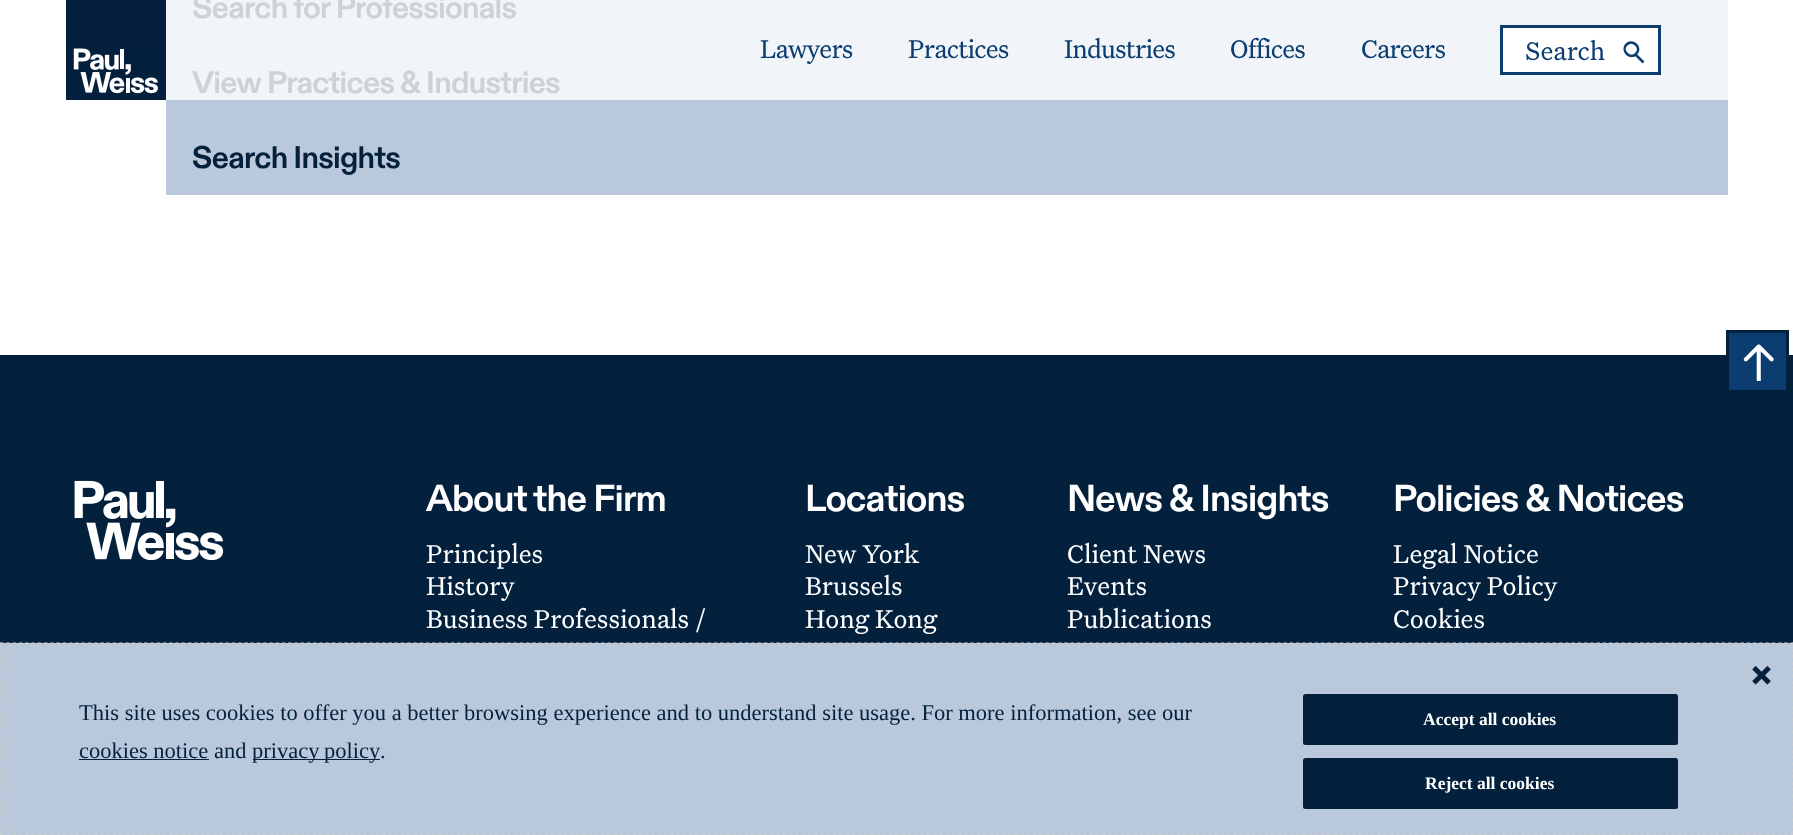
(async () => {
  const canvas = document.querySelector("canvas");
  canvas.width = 1793;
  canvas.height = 835;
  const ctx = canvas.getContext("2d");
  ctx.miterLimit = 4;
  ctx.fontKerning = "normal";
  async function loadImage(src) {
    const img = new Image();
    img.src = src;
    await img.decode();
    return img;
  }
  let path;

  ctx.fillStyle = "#ffffff";
  ctx.fillRect(0, 0, 1793, 835);
  for (const [x, y, w, h, color] of [
    [166, 0, 1562, 100, "#f1f4f8"],
    [166, 100, 1562, 95, "#b9c8da"],
    [66, 0, 100, 100, "#04203e"],
  ]) {
    ctx.fillStyle = color;
    ctx.fillRect(x, y, w, h);
  }
  ctx.drawImage(await loadImage("img/1.png"), 73, 48, 85, 46);
  ctx.fillStyle = "#ffffff";
  ctx.beginPath();
  ctx.rect(1501.5, 26.5, 158, 47);
  ctx.fill();
  ctx.strokeStyle = "#0b3d71";
  ctx.lineWidth = 3;
  ctx.stroke();
  path = new Path2D("M1626.5 44.5C1633 38.5 1642.5 48 1636 54C1630 60 1620.5 50.5 1626.5 44.5ZM1636 55L1643.5 62.5");
  ctx.lineWidth = 2.5;
  ctx.stroke(path);
  ctx.fillStyle = "#03203d";
  ctx.fillRect(0, 355, 1793, 288);
  ctx.drawImage(await loadImage("img/2.png"), 74, 480, 150, 80);
  ctx.fillStyle = "#0b3d71";
  ctx.beginPath();
  ctx.rect(1727.5, 331.5, 60, 60);
  ctx.fill();
  ctx.strokeStyle = "#03203d";
  ctx.lineWidth = 3;
  ctx.stroke();
  ctx.drawImage(await loadImage("img/3.png"), 1743, 344, 31, 37);
  ctx.fillStyle = "#b9c8da";
  ctx.fillRect(0, 643, 1793, 192);
  path = new Path2D("M0 643H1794");
  ctx.strokeStyle = "#cccccc";
  ctx.lineWidth = 1.2;
  ctx.setLineDash([3.75, 2.51]);
  ctx.stroke(path);
  path = new Path2D("M1793 642.5V835");
  ctx.setLineDash([3.75, 2.54]);
  ctx.stroke(path);
  path = new Path2D("M0 834.5H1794");
  ctx.setLineDash([3.75, 2.51]);
  ctx.stroke(path);
  path = new Path2D("M.5 642.5V835");
  ctx.setLineDash([3.75, 2.54]);
  ctx.stroke(path);
  ctx.drawImage(await loadImage("img/4.png"), 1752, 666, 19, 19);
  ctx.fillStyle = "#03203d";
  ctx.fillRect(79, 759, 130, 1);
  ctx.fillRect(253, 759, 127, 1);
  ctx.beginPath();
  ctx.roundRect(1303, 694, 375, 51, 2.5);
  ctx.fill();
  ctx.beginPath();
  ctx.roundRect(1303, 758, 375, 51, 2.5);
  ctx.fill();
  ctx.letterSpacing = "-0.75px";
  ctx.font = "bold 31.25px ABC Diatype";
  ctx.fillStyle = "#cdd2d8";
  ctx.fillText("Search for Professionals", 192, 18);
  ctx.fillText("View Practices & Industries", 192, 93);
  ctx.fillStyle = "#03203d";
  ctx.fillText("Search Insights", 192, 168);
  ctx.font = "27.5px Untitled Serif";
  ctx.fillStyle = "#0b3d71";
  for (const [text, x, y] of [
    ["Lawyers", 760, 58],
    ["Practices", 908, 58],
    ["Industries", 1064, 58],
    ["Offices", 1230, 58],
    ["Careers", 1361, 58],
  ]) {
    ctx.fillText(text, x, y);
  }
  ctx.letterSpacing = "0px";
  ctx.fillText("Search", 1525, 60);
  ctx.letterSpacing = "-0.9px";
  ctx.font = "bold 37.5px ABC Diatype";
  ctx.fillStyle = "#ffffff";
  ctx.fillText("About the Firm", 426, 511);
  ctx.letterSpacing = "0px";
  ctx.font = "27.5px Untitled Serif";
  for (const [text, x, y] of [
    ["Principles", 426, 563],
    ["History", 426, 595],
    ["Business Professionals /", 426, 628],
  ]) {
    ctx.fillText(text, x, y);
  }
  ctx.letterSpacing = "-0.9px";
  ctx.font = "bold 37.5px ABC Diatype";
  ctx.fillText("Locations", 805, 511);
  ctx.letterSpacing = "0px";
  ctx.font = "27.5px Untitled Serif";
  for (const [text, x, y] of [
    ["New York", 805, 563],
    ["Brussels", 805, 595],
    ["Hong Kong", 805, 628],
  ]) {
    ctx.fillText(text, x, y);
  }
  ctx.letterSpacing = "-0.9px";
  ctx.font = "bold 37.5px ABC Diatype";
  ctx.fillText("News & Insights", 1067, 511);
  ctx.letterSpacing = "0px";
  ctx.font = "27.5px Untitled Serif";
  for (const [text, x, y] of [
    ["Client News", 1067, 563],
    ["Events", 1067, 595],
    ["Publications", 1067, 628],
  ]) {
    ctx.fillText(text, x, y);
  }
  ctx.letterSpacing = "-0.9px";
  ctx.font = "bold 37.5px ABC Diatype";
  ctx.fillText("Policies & Notices", 1393, 511);
  ctx.letterSpacing = "0px";
  ctx.font = "27.5px Untitled Serif";
  for (const [text, x, y] of [
    ["Legal Notice", 1393, 563],
    ["Privacy Policy", 1393, 595],
    ["Cookies", 1393, 628],
  ]) {
    ctx.fillText(text, x, y);
  }
  ctx.font = "22.5px Liberation Serif";
  ctx.fillStyle = "#03203d";
  ctx.fillText("This site uses cookies to offer you a better browsing experience and to understand site usage. For more information, see our", 79, 720);
  ctx.fillText("cookies notice and", 79, 758);
  ctx.wordSpacing = "-1px";
  ctx.fillText("privacy policy", 252, 758);
  ctx.wordSpacing = "0px";
  ctx.fillText(".", 380, 758);
  ctx.font = "bold 17.5px Liberation Serif";
  ctx.fillStyle = "#ffffff";
  ctx.fillText("Accept all cookies", 1423, 725);
  ctx.fillText("Reject all cookies", 1425, 789);
})();
